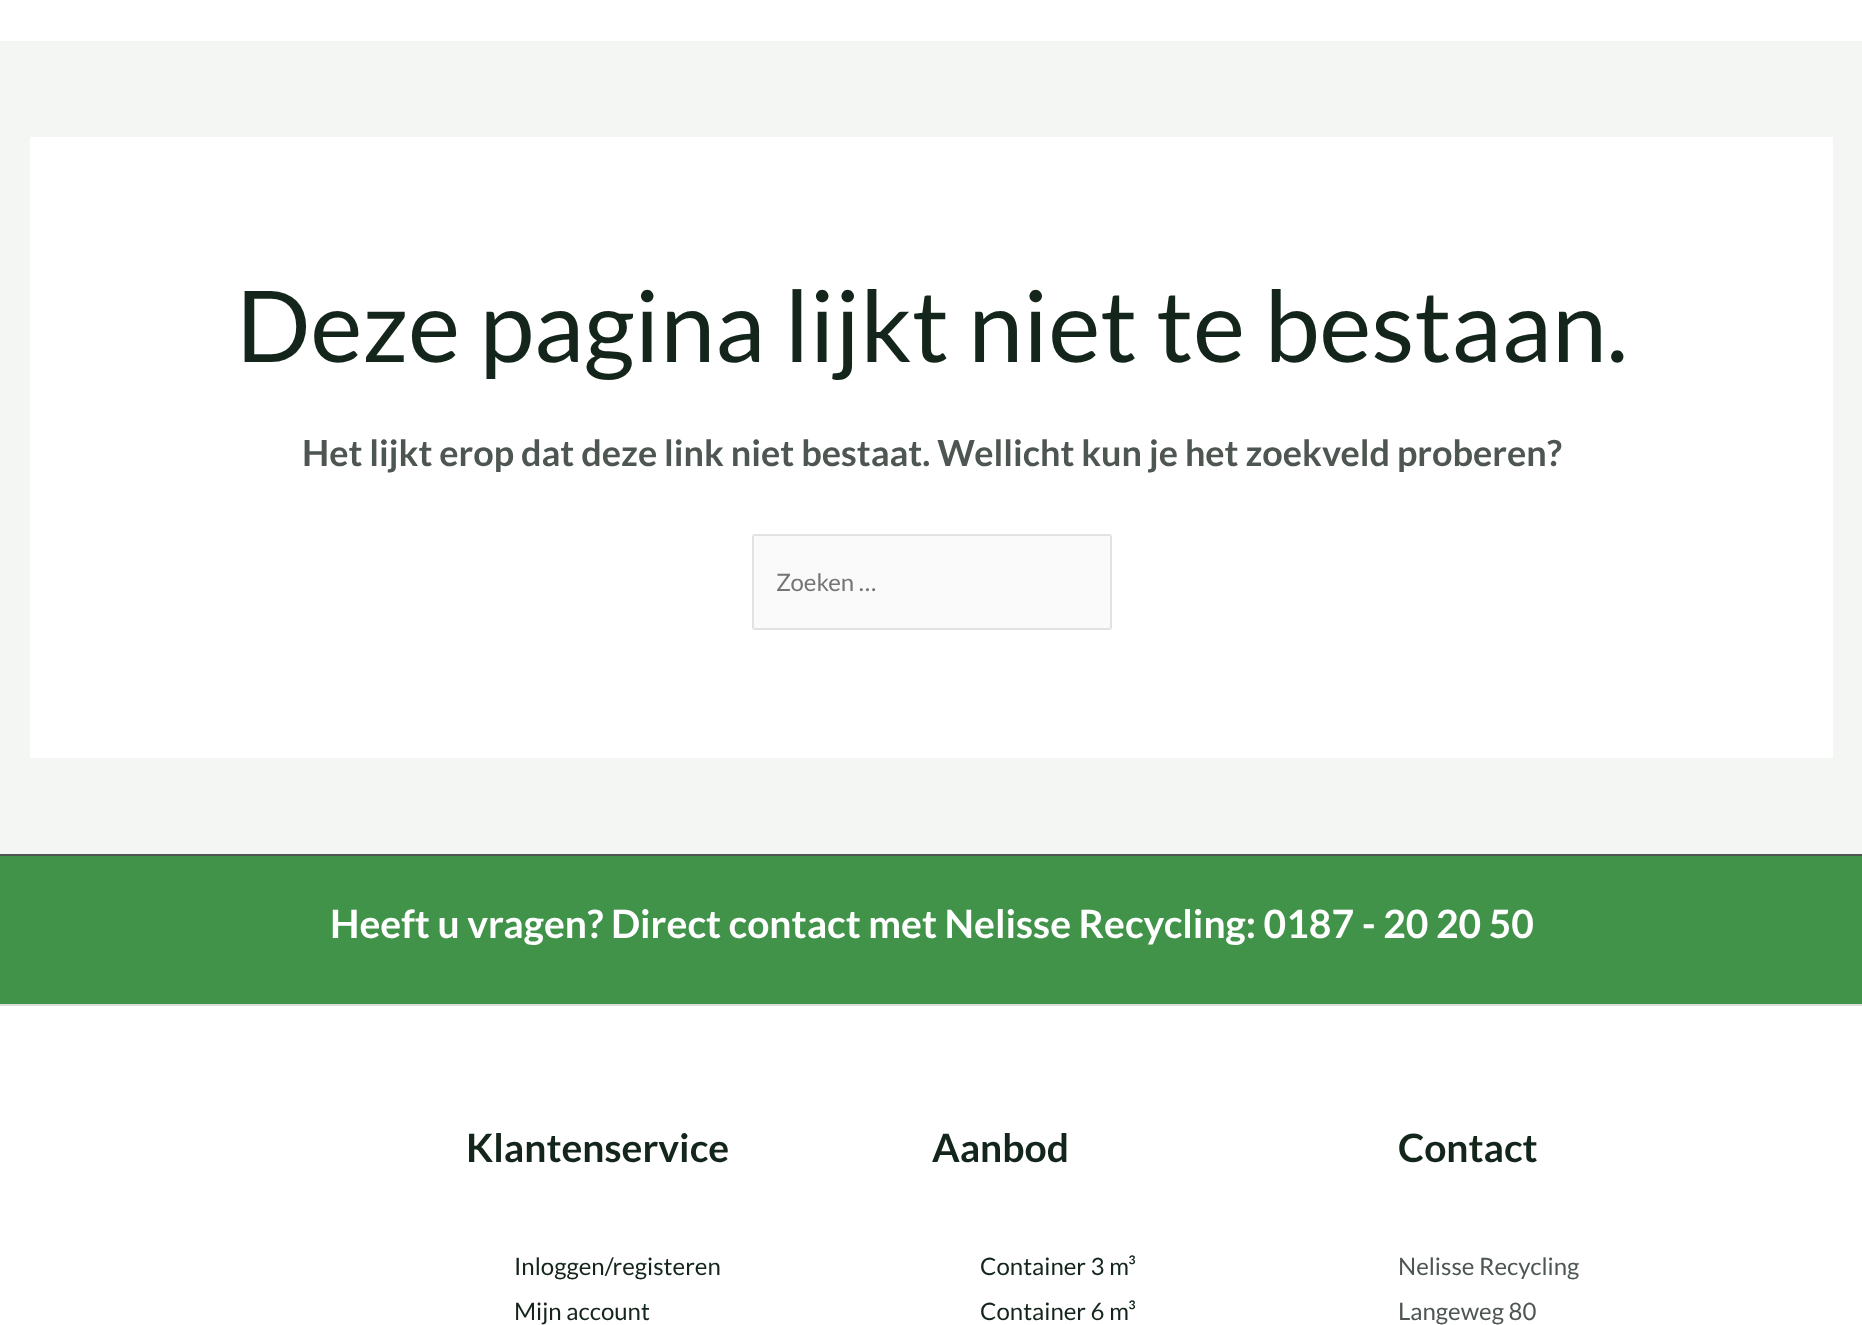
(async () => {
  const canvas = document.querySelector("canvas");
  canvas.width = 1862;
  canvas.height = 1325;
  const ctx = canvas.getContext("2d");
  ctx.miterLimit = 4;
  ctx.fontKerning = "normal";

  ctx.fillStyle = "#f4f6f4";
  ctx.fillRect(0, 0, 1862, 1325);
  ctx.fillStyle = "#ffffff";
  ctx.fillRect(0, 0, 1862, 41);
  ctx.fillRect(30, 137, 1803, 621);
  ctx.fillStyle = "#fafafa";
  ctx.beginPath();
  ctx.roundRect(753, 535, 358, 94, 2);
  ctx.fill();
  ctx.strokeStyle = "#e2e2e2";
  ctx.lineWidth = 2;
  ctx.stroke();
  for (const [x, y, w, h, color] of [
    [0, 1006, 1862, 319, "#ffffff"],
    [0, 856, 1862, 148, "#41934a"],
    [0, 854, 1862, 2, "#4e5652"],
    [0, 1004, 1862, 2, "#dddddd"],
  ]) {
    ctx.fillStyle = color;
    ctx.fillRect(x, y, w, h);
  }
  ctx.font = "99px Lato";
  ctx.fillStyle = "#14261c";
  ctx.fillText("Deze pagina lijkt niet te bestaan.", 236, 362);
  ctx.font = "bold 36px Lato";
  ctx.fillStyle = "#4e5652";
  ctx.fillText("Het lijkt erop dat deze link niet bestaat. Wellicht kun je het zoekveld proberen?", 302, 466);
  ctx.font = "24px Lato";
  ctx.fillStyle = "#757575";
  ctx.fillText("Zoeken …", 776, 591);
  ctx.font = "bold 39px Lato";
  ctx.fillStyle = "#ffffff";
  ctx.fillText("Heeft u vragen? Direct contact met Nelisse Recycling: 0187 - 20 20 50", 330, 938);
  ctx.fillStyle = "#14261c";
  ctx.fillText("Klantenservice", 466, 1162);
  ctx.font = "24px Lato";
  ctx.fillText("Inloggen/registeren", 514, 1275);
  ctx.fillText("Mijn account", 514, 1320);
  ctx.font = "bold 39px Lato";
  ctx.fillText("Aanbod", 932, 1162);
  ctx.font = "24px Lato";
  ctx.fillText("Container 3 m³", 980, 1275);
  ctx.fillText("Container 6 m³", 980, 1320);
  ctx.font = "bold 39px Lato";
  ctx.fillText("Contact", 1398, 1162);
  ctx.font = "24px Lato";
  ctx.fillStyle = "#4e5652";
  ctx.fillText("Nelisse Recycling", 1398, 1275);
  ctx.fillText("Langeweg 80", 1398, 1320);
})();
